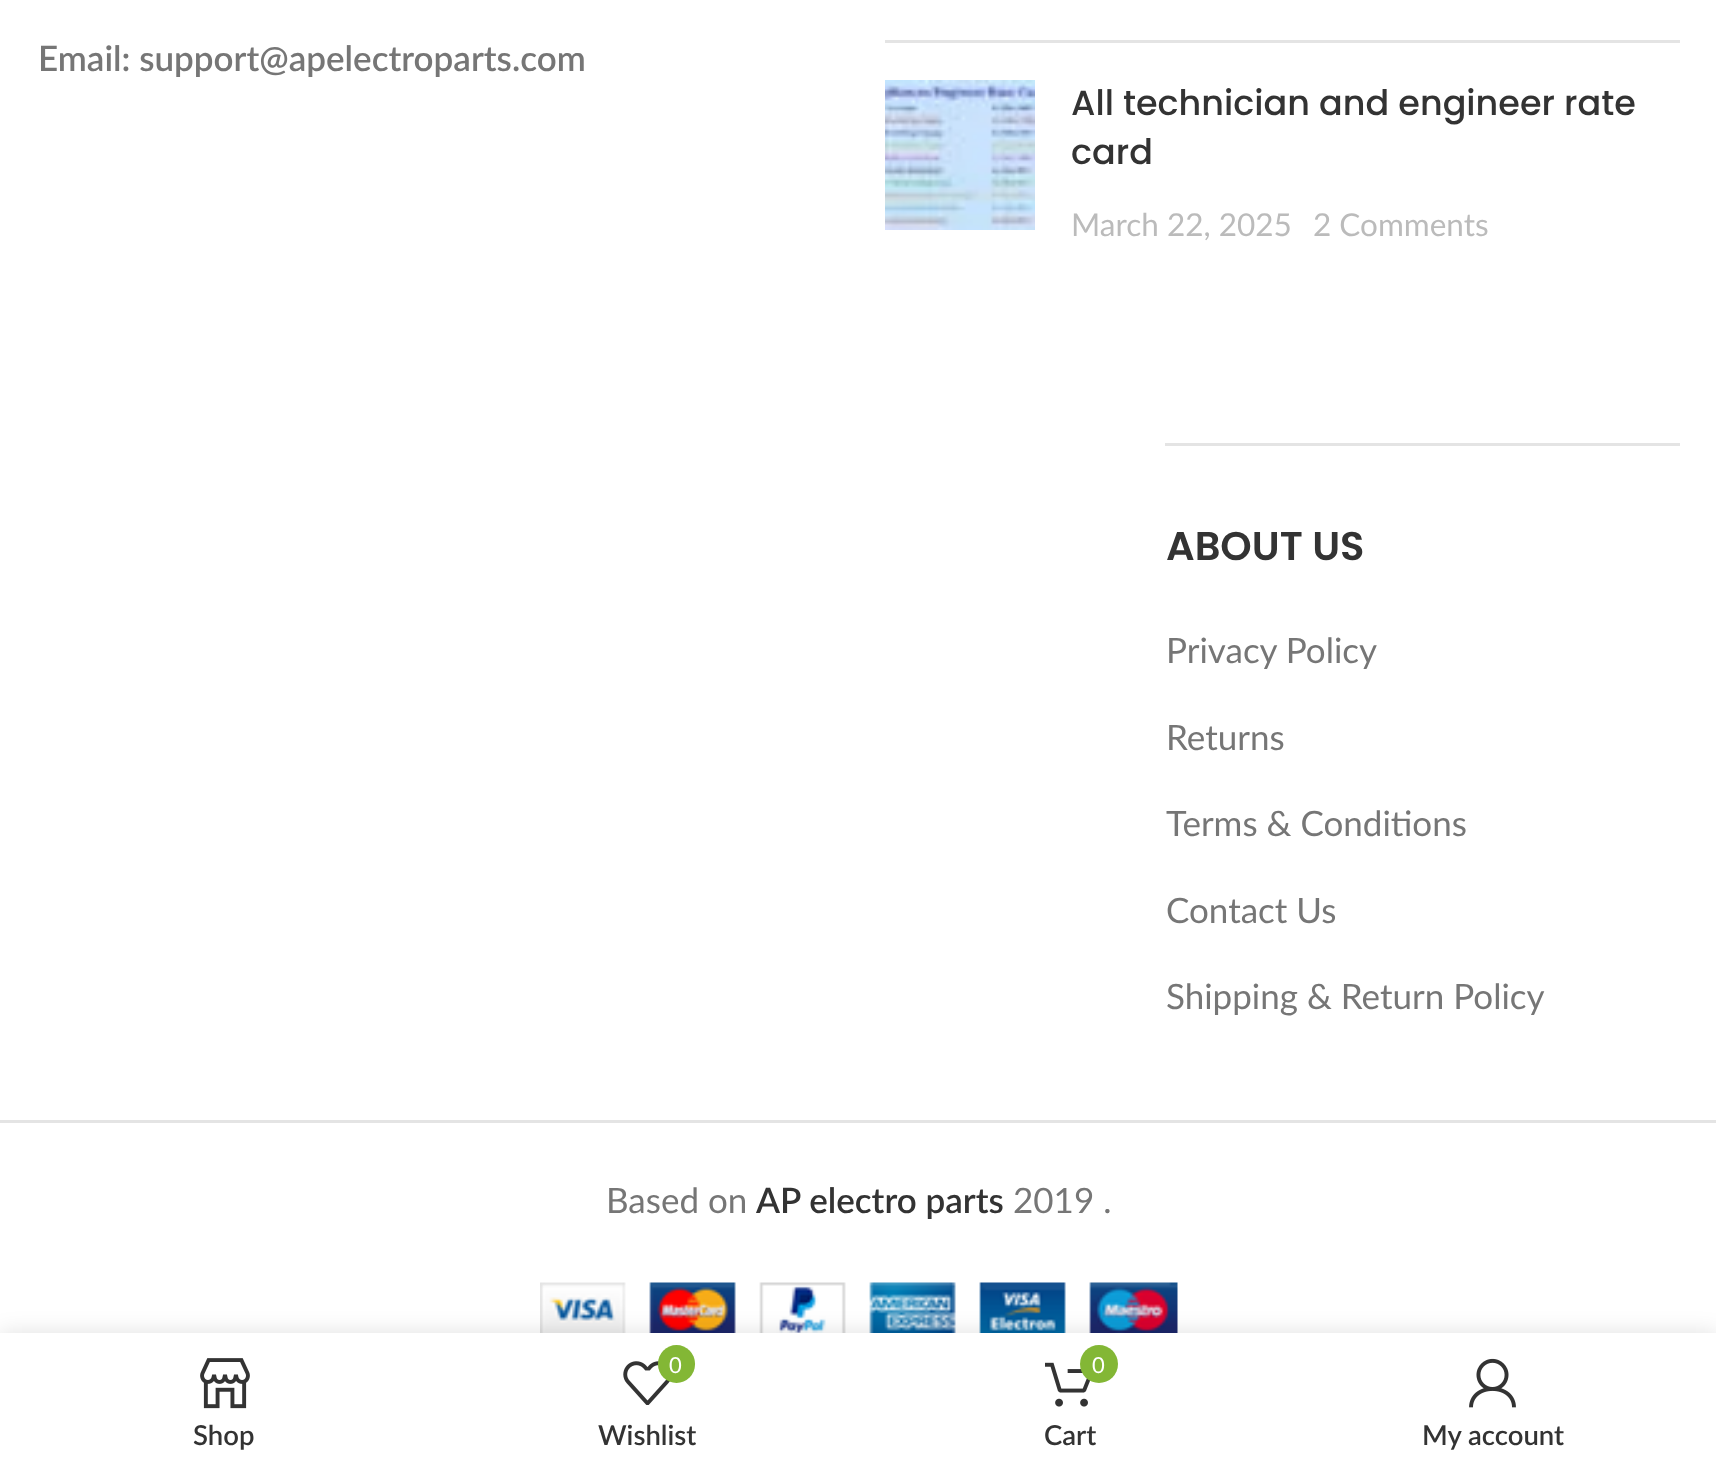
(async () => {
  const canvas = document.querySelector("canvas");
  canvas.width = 1716;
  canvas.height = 1468;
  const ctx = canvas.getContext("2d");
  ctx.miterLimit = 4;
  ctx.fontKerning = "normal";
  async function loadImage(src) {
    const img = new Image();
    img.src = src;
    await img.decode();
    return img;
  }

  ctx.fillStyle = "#ffffff";
  ctx.fillRect(0, 0, 1716, 1468);
  ctx.fillStyle = "#e4e4e4";
  ctx.fillRect(885, 40, 795, 3);
  ctx.drawImage(await loadImage("img/1.png"), 885, 80, 150, 150);
  ctx.fillRect(1165, 443, 515, 3);
  ctx.fillRect(0, 1120, 1716, 3);
  ctx.drawImage(await loadImage("img/2.png"), 540, 1282, 638, 51);
  ctx.fillStyle = "rgba(0, 0, 0, 0.12)";
  ctx.filter = "blur(11px)";
  ctx.beginPath();
  ctx.rect(0, 1333, 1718, 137);
  ctx.fill();
  ctx.filter = "none";
  ctx.fillStyle = "#ffffff";
  ctx.fillRect(0, 1333, 1716, 135);
  ctx.drawImage(await loadImage("img/3.png"), 200, 1358, 50, 51);
  ctx.drawImage(await loadImage("img/4.png"), 623, 1361, 47, 44);
  ctx.fillStyle = "#83b735";
  ctx.beginPath();
  ctx.roundRect(658, 1345, 37, 38, 18.5);
  ctx.fill();
  ctx.drawImage(await loadImage("img/5.png"), 1045, 1362, 46, 45);
  ctx.beginPath();
  ctx.arc(1099, 1364, 19, 0, Math.PI * 2);
  ctx.fill();
  ctx.drawImage(await loadImage("img/6.png"), 1469, 1358, 47, 50);
  ctx.font = "600 35px Lato";
  ctx.fillStyle = "#767676";
  ctx.fillText("Email: support@apelectroparts.com", 38, 71);
  ctx.font = "500 35px Poppins";
  ctx.fillStyle = "#333333";
  ctx.fillText("All technician and engineer rate", 1071, 115);
  ctx.fillText("card", 1071, 164);
  ctx.font = "31.5px Lato";
  ctx.fillStyle = "#bbbbbb";
  ctx.fillText("March 22, 2025", 1071, 236);
  ctx.fillText("2 Comments", 1313, 236);
  ctx.font = "600 40px Poppins";
  ctx.fillStyle = "#333333";
  ctx.fillText("ABOUT US", 1166, 560);
  ctx.font = "35px Lato";
  ctx.fillStyle = "#767676";
  for (const [text, x, y] of [
    ["Privacy Policy", 1166, 663],
    ["Returns", 1166, 750],
    ["Terms & Conditions", 1166, 836],
    ["Contact Us", 1166, 923],
    ["Shipping & Return Policy", 1166, 1009],
    ["Based on", 606, 1213],
  ]) {
    ctx.fillText(text, x, y);
  }
  ctx.font = "600 35px Lato";
  ctx.fillStyle = "#333333";
  ctx.fillText("AP electro parts", 756, 1213);
  ctx.font = "35px Lato";
  ctx.fillStyle = "#767676";
  ctx.fillText("2019 .", 1013, 1213);
  ctx.font = "600 27.5px Lato";
  ctx.fillStyle = "#333333";
  ctx.fillText("Shop", 193, 1445);
  ctx.font = "22px Lato";
  ctx.fillStyle = "#ffffff";
  ctx.fillText("0", 669, 1373);
  ctx.font = "600 27.5px Lato";
  ctx.fillStyle = "#333333";
  ctx.fillText("Wishlist", 598, 1445);
  ctx.font = "22px Lato";
  ctx.fillStyle = "#ffffff";
  ctx.fillText("0", 1092, 1373);
  ctx.font = "600 27.5px Lato";
  ctx.fillStyle = "#333333";
  ctx.fillText("Cart", 1044, 1445);
  ctx.fillText("My account", 1422, 1445);
})();
